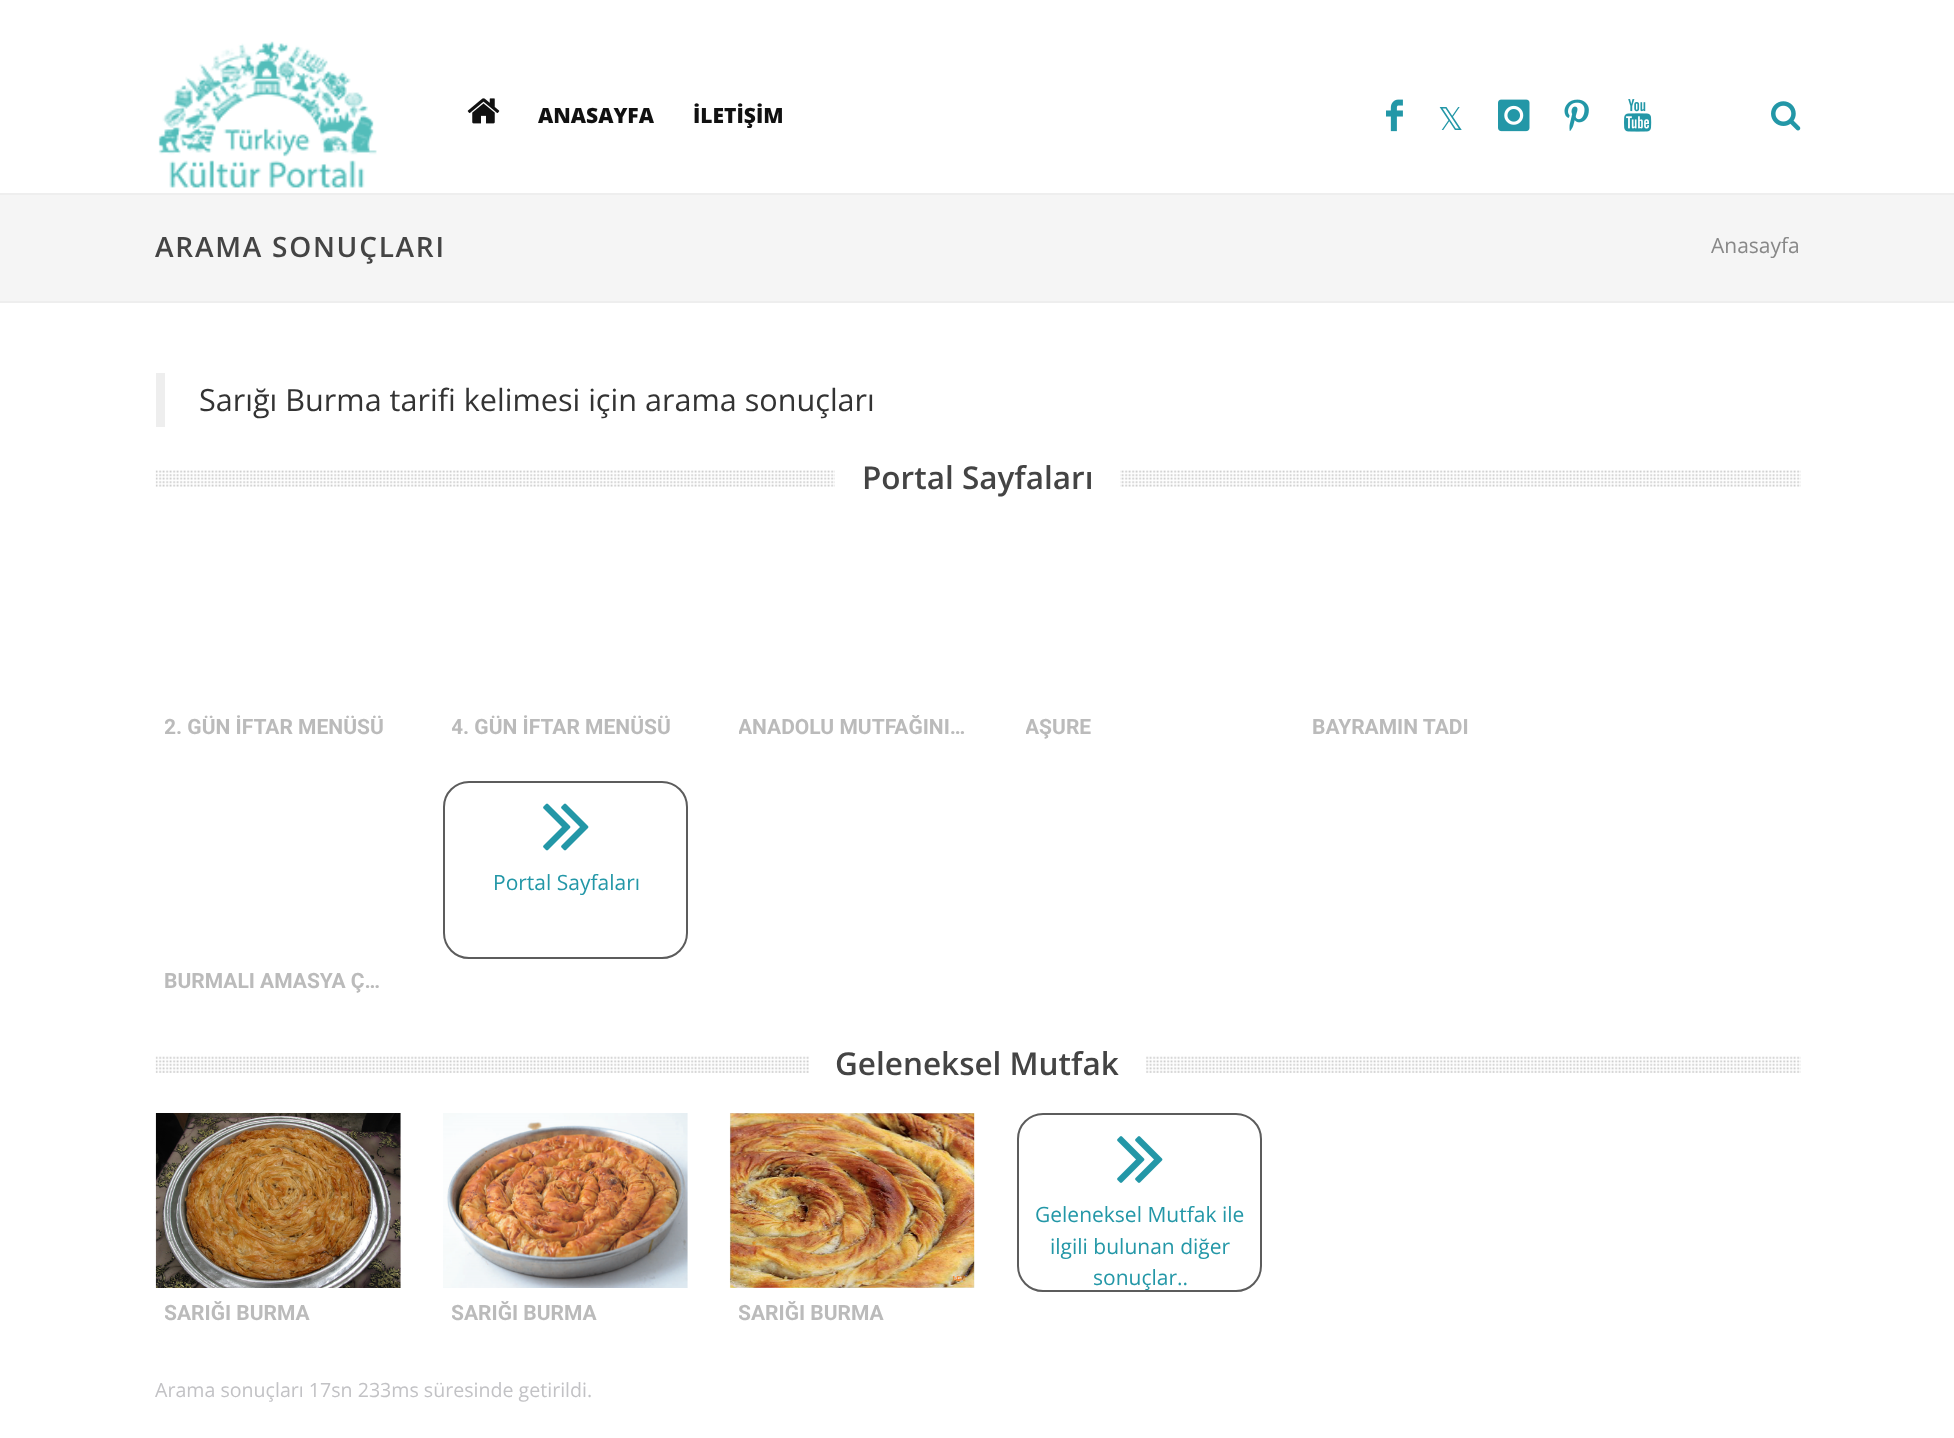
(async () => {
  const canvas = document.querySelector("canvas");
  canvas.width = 1954;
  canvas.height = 1438;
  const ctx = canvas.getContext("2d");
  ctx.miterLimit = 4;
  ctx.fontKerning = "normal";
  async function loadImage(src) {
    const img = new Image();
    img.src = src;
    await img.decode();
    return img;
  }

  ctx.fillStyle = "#ffffff";
  ctx.fillRect(0, 0, 1954, 1438);
  ctx.fillStyle = "#eeeeee";
  ctx.fillRect(0, 193, 1954, 2);
  ctx.drawImage(await loadImage("img/1.png"), 158, 41, 219, 147);
  ctx.drawImage(await loadImage("img/2.png"), 467, 98, 33, 26);
  ctx.drawImage(await loadImage("img/3.png"), 1386, 99, 17, 33);
  ctx.drawImage(await loadImage("img/4.png"), 1498, 99, 32, 33);
  ctx.drawImage(await loadImage("img/5.png"), 1564, 99, 25, 32);
  ctx.drawImage(await loadImage("img/6.png"), 1624, 99, 28, 33);
  ctx.drawImage(await loadImage("img/7.png"), 1771, 101, 30, 30);
  for (const [x, y, w, h, color] of [
    [0, 195, 1954, 106, "#f5f5f5"],
    [0, 301, 1954, 2, "#eeeeee"],
    [156, 373, 9, 54, "#eeeeee"],
  ]) {
    ctx.fillStyle = color;
    ctx.fillRect(x, y, w, h);
  }
  ctx.drawImage(await loadImage("img/8.png"), 155, 470, 1646, 17);
  ctx.fillStyle = "#ffffff";
  ctx.fillRect(835, 470, 285, 17);
  ctx.beginPath();
  ctx.roundRect(444, 782, 243, 176, 25);
  ctx.strokeStyle = "#5c5c5c";
  ctx.lineWidth = 2;
  ctx.stroke();
  ctx.drawImage(await loadImage("img/9.png"), 543, 803, 46, 48);
  ctx.drawImage(await loadImage("img/10.png"), 155, 1056, 1646, 17);
  ctx.fillRect(809, 1056, 337, 17);
  ctx.beginPath();
  ctx.roundRect(1018, 1114, 243, 177, 25);
  ctx.stroke();
  ctx.drawImage(await loadImage("img/11.png"), 1117, 1136, 46, 47);
  ctx.drawImage(await loadImage("img/12.png"), 155, 1113, 246, 175);
  ctx.drawImage(await loadImage("img/13.png"), 443, 1113, 245, 175);
  ctx.drawImage(await loadImage("img/14.png"), 729, 1113, 246, 175);
  ctx.font = "800 21px Open Sans";
  ctx.fillStyle = "#111111";
  ctx.fillText("ANASAYFA", 538, 123);
  ctx.fillText("İLETİŞİM", 693, 123);
  ctx.font = "31.5px DejaVu Sans";
  ctx.fillStyle = "#2397a7";
  ctx.fillText("𝕏", 1438, 130);
  ctx.letterSpacing = "1.75px";
  ctx.font = "600 28px Open Sans";
  ctx.fillStyle = "#444444";
  ctx.fillText("ARAMA SONUÇLARI", 155, 257);
  ctx.letterSpacing = "0px";
  ctx.font = "21px Open Sans";
  ctx.fillStyle = "#888888";
  ctx.fillText("Anasayfa", 1711, 253);
  ctx.font = "30.6px Open Sans";
  ctx.fillStyle = "#333333";
  ctx.fillText("Sarığı Burma tarifi kelimesi için arama sonuçları", 199, 411);
  ctx.font = "600 31.5px Open Sans";
  ctx.fillStyle = "#444444";
  ctx.fillText("Portal Sayfaları", 862, 489);
  ctx.save();
  ctx.beginPath();
  ctx.rect(165, 711, 227, 31);
  ctx.clip();
  ctx.font = "bold 21px Roboto";
  ctx.fillStyle = "#bbbbbb";
  ctx.fillText("2. GÜN İFTAR MENÜSÜ", 164, 734);
  ctx.restore();
  ctx.save();
  ctx.beginPath();
  ctx.rect(452, 711, 227, 31);
  ctx.clip();
  ctx.font = "bold 21px Roboto";
  ctx.fillStyle = "#bbbbbb";
  ctx.fillText("4. GÜN İFTAR MENÜSÜ", 451, 734);
  ctx.restore();
  ctx.save();
  ctx.beginPath();
  ctx.rect(739, 711, 227, 31);
  ctx.clip();
  ctx.font = "bold 21px Roboto";
  ctx.fillStyle = "#bbbbbb";
  ctx.fillText("ANADOLU MUTFAĞINI…", 738, 734);
  ctx.restore();
  ctx.save();
  ctx.beginPath();
  ctx.rect(1026, 711, 227, 31);
  ctx.clip();
  ctx.font = "bold 21px Roboto";
  ctx.fillStyle = "#bbbbbb";
  ctx.fillText("AŞURE", 1025, 734);
  ctx.restore();
  ctx.font = "bold 21px Roboto";
  ctx.fillStyle = "#bbbbbb";
  ctx.fillText("BAYRAMIN TADI", 1312, 734);
  ctx.font = "21px Open Sans";
  ctx.fillStyle = "#2397a7";
  ctx.fillText("Portal Sayfaları", 493, 890);
  ctx.font = "bold 21px Roboto";
  ctx.fillStyle = "#bbbbbb";
  ctx.fillText("BURMALI AMASYA Ç…", 164, 988);
  ctx.font = "600 31.5px Open Sans";
  ctx.fillStyle = "#444444";
  ctx.fillText("Geleneksel Mutfak", 835, 1075);
  ctx.font = "21px Open Sans";
  ctx.fillStyle = "#2397a7";
  for (const [text, x, y] of [
    ["Geleneksel Mutfak ile", 1035, 1222],
    ["ilgili bulunan diğer", 1050, 1254],
    ["sonuçlar..", 1093, 1285],
  ]) {
    ctx.fillText(text, x, y);
  }
  ctx.save();
  ctx.beginPath();
  ctx.rect(165, 1297, 227, 31);
  ctx.clip();
  ctx.font = "bold 21px Roboto";
  ctx.fillStyle = "#bbbbbb";
  ctx.fillText("SARIĞI BURMA", 164, 1320);
  ctx.restore();
  ctx.save();
  ctx.beginPath();
  ctx.rect(452, 1297, 227, 31);
  ctx.clip();
  ctx.font = "bold 21px Roboto";
  ctx.fillStyle = "#bbbbbb";
  ctx.fillText("SARIĞI BURMA", 451, 1320);
  ctx.restore();
  ctx.save();
  ctx.beginPath();
  ctx.rect(739, 1297, 227, 31);
  ctx.clip();
  ctx.font = "bold 21px Roboto";
  ctx.fillStyle = "#bbbbbb";
  ctx.fillText("SARIĞI BURMA", 738, 1320);
  ctx.restore();
  ctx.font = "19.6px Open Sans";
  ctx.fillStyle = "#c2c2c5";
  ctx.fillText("Arama sonuçları 17sn 233ms süresinde getirildi.", 155, 1397);
})();
